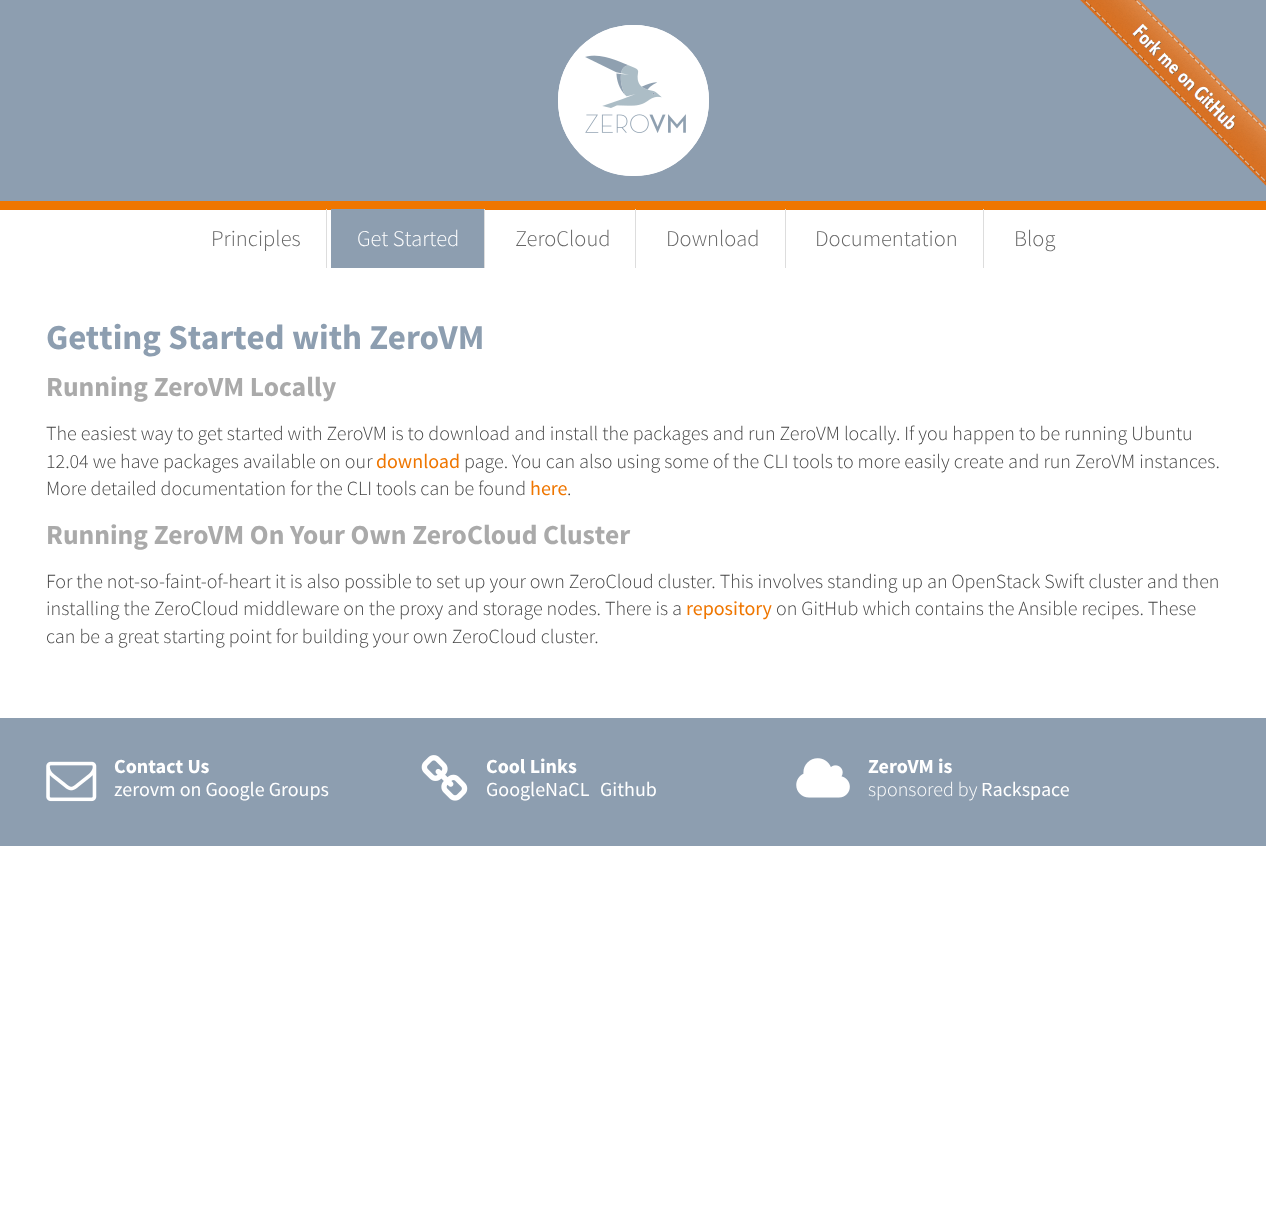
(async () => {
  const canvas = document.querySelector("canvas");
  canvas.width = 1266;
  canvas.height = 1221;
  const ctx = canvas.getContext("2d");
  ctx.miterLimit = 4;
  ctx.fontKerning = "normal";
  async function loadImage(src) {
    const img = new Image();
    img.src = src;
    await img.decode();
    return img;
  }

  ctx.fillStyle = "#ffffff";
  ctx.fillRect(0, 0, 1266, 1221);
  ctx.fillStyle = "#8d9eb0";
  ctx.fillRect(0, 0, 1266, 201);
  ctx.fillStyle = "#ffffff";
  ctx.beginPath();
  ctx.arc(633.5, 100.5, 75.5, 0, Math.PI * 2);
  ctx.fill();
  ctx.drawImage(await loadImage("img/1.png"), 585, 55, 101, 78);
  ctx.beginPath();
  ctx.arc(633.5, 100.5, 74, 0, Math.PI * 2);
  ctx.strokeStyle = "#ffffff";
  ctx.lineWidth = 3;
  ctx.stroke();
  ctx.drawImage(await loadImage("img/2.png"), 1080, 0, 186, 186);
  for (const [x, y, w, h, color] of [
    [0, 201, 1266, 9, "#ef7600"],
    [326, 209, 1, 59, "#dddddd"],
    [331, 209, 153, 59, "#8d9eb0"],
    [484, 209, 1, 59, "#dddddd"],
    [635, 209, 1, 59, "#dddddd"],
    [785, 209, 1, 59, "#dddddd"],
    [983, 209, 1, 59, "#dddddd"],
    [0, 718, 1266, 128, "#8d9eb0"],
  ]) {
    ctx.fillStyle = color;
    ctx.fillRect(x, y, w, h);
  }
  ctx.drawImage(await loadImage("img/3.png"), 46, 761, 51, 41);
  ctx.drawImage(await loadImage("img/4.png"), 421, 755, 47, 46);
  ctx.drawImage(await loadImage("img/5.png"), 796, 758, 54, 40);
  ctx.font = "300 22.5px Source Sans Pro";
  ctx.fillStyle = "#666666";
  ctx.fillText("Principles", 211, 246);
  ctx.fillStyle = "#ffffff";
  ctx.fillText("Get Started", 357, 246);
  ctx.fillStyle = "#666666";
  for (const [text, x, y] of [
    ["ZeroCloud", 515, 246],
    ["Download", 666, 246],
    ["Documentation", 815, 246],
    ["Blog", 1014, 246],
  ]) {
    ctx.fillText(text, x, y);
  }
  ctx.font = "bold 35px Source Sans Pro";
  ctx.fillStyle = "#8d9eb0";
  ctx.fillText("Getting Started with ZeroVM", 46, 349);
  ctx.font = "bold 27.5px Source Sans Pro";
  ctx.fillStyle = "#aaaaaa";
  ctx.fillText("Running ZeroVM Locally", 46, 396);
  ctx.font = "300 20px Source Sans Pro";
  ctx.fillStyle = "#444444";
  ctx.fillText("The easiest way to get started with ZeroVM is to download and install the packages and run ZeroVM locally. If you happen to be running Ubuntu", 46, 440);
  ctx.fillText("12.04 we have packages available on our", 46, 468);
  ctx.font = "20px Source Sans Pro";
  ctx.fillStyle = "#ef7600";
  ctx.fillText("download", 376, 468);
  ctx.font = "300 20px Source Sans Pro";
  ctx.fillStyle = "#444444";
  ctx.fillText("page. You can also using some of the CLI tools to more easily create and run ZeroVM instances.", 464, 468);
  ctx.fillText("More detailed documentation for the CLI tools can be found", 46, 495);
  ctx.font = "20px Source Sans Pro";
  ctx.fillStyle = "#ef7600";
  ctx.fillText("here", 530, 495);
  ctx.font = "300 20px Source Sans Pro";
  ctx.fillStyle = "#444444";
  ctx.fillText(".", 567, 495);
  ctx.font = "bold 27.5px Source Sans Pro";
  ctx.fillStyle = "#aaaaaa";
  ctx.fillText("Running ZeroVM On Your Own ZeroCloud Cluster", 46, 544);
  ctx.font = "300 20px Source Sans Pro";
  ctx.fillStyle = "#444444";
  ctx.fillText("For the not-so-faint-of-heart it is also possible to set up your own ZeroCloud cluster. This involves standing up an OpenStack Swift cluster and then", 46, 588);
  ctx.fillText("installing the ZeroCloud middleware on the proxy and storage nodes. There is a", 46, 615);
  ctx.font = "20px Source Sans Pro";
  ctx.fillStyle = "#ef7600";
  ctx.fillText("repository", 686, 615);
  ctx.font = "300 20px Source Sans Pro";
  ctx.fillStyle = "#444444";
  ctx.fillText("on GitHub which contains the Ansible recipes. These", 776, 615);
  ctx.fillText("can be a great starting point for building your own ZeroCloud cluster.", 46, 643);
  ctx.font = "bold 20px Source Sans Pro";
  ctx.fillStyle = "#ffffff";
  ctx.fillText("Contact Us", 114, 773);
  ctx.font = "20px Source Sans Pro";
  ctx.fillText("zerovm on Google Groups", 114, 796);
  ctx.font = "bold 20px Source Sans Pro";
  ctx.fillText("Cool Links", 486, 773);
  ctx.font = "20px Source Sans Pro";
  ctx.fillText("GoogleNaCL", 486, 796);
  ctx.fillText("Github", 600, 796);
  ctx.font = "bold 20px Source Sans Pro";
  ctx.fillText("ZeroVM is", 868, 773);
  ctx.font = "300 20px Source Sans Pro";
  ctx.fillText("sponsored by", 868, 796);
  ctx.font = "20px Source Sans Pro";
  ctx.fillText("Rackspace", 981, 796);
})();
